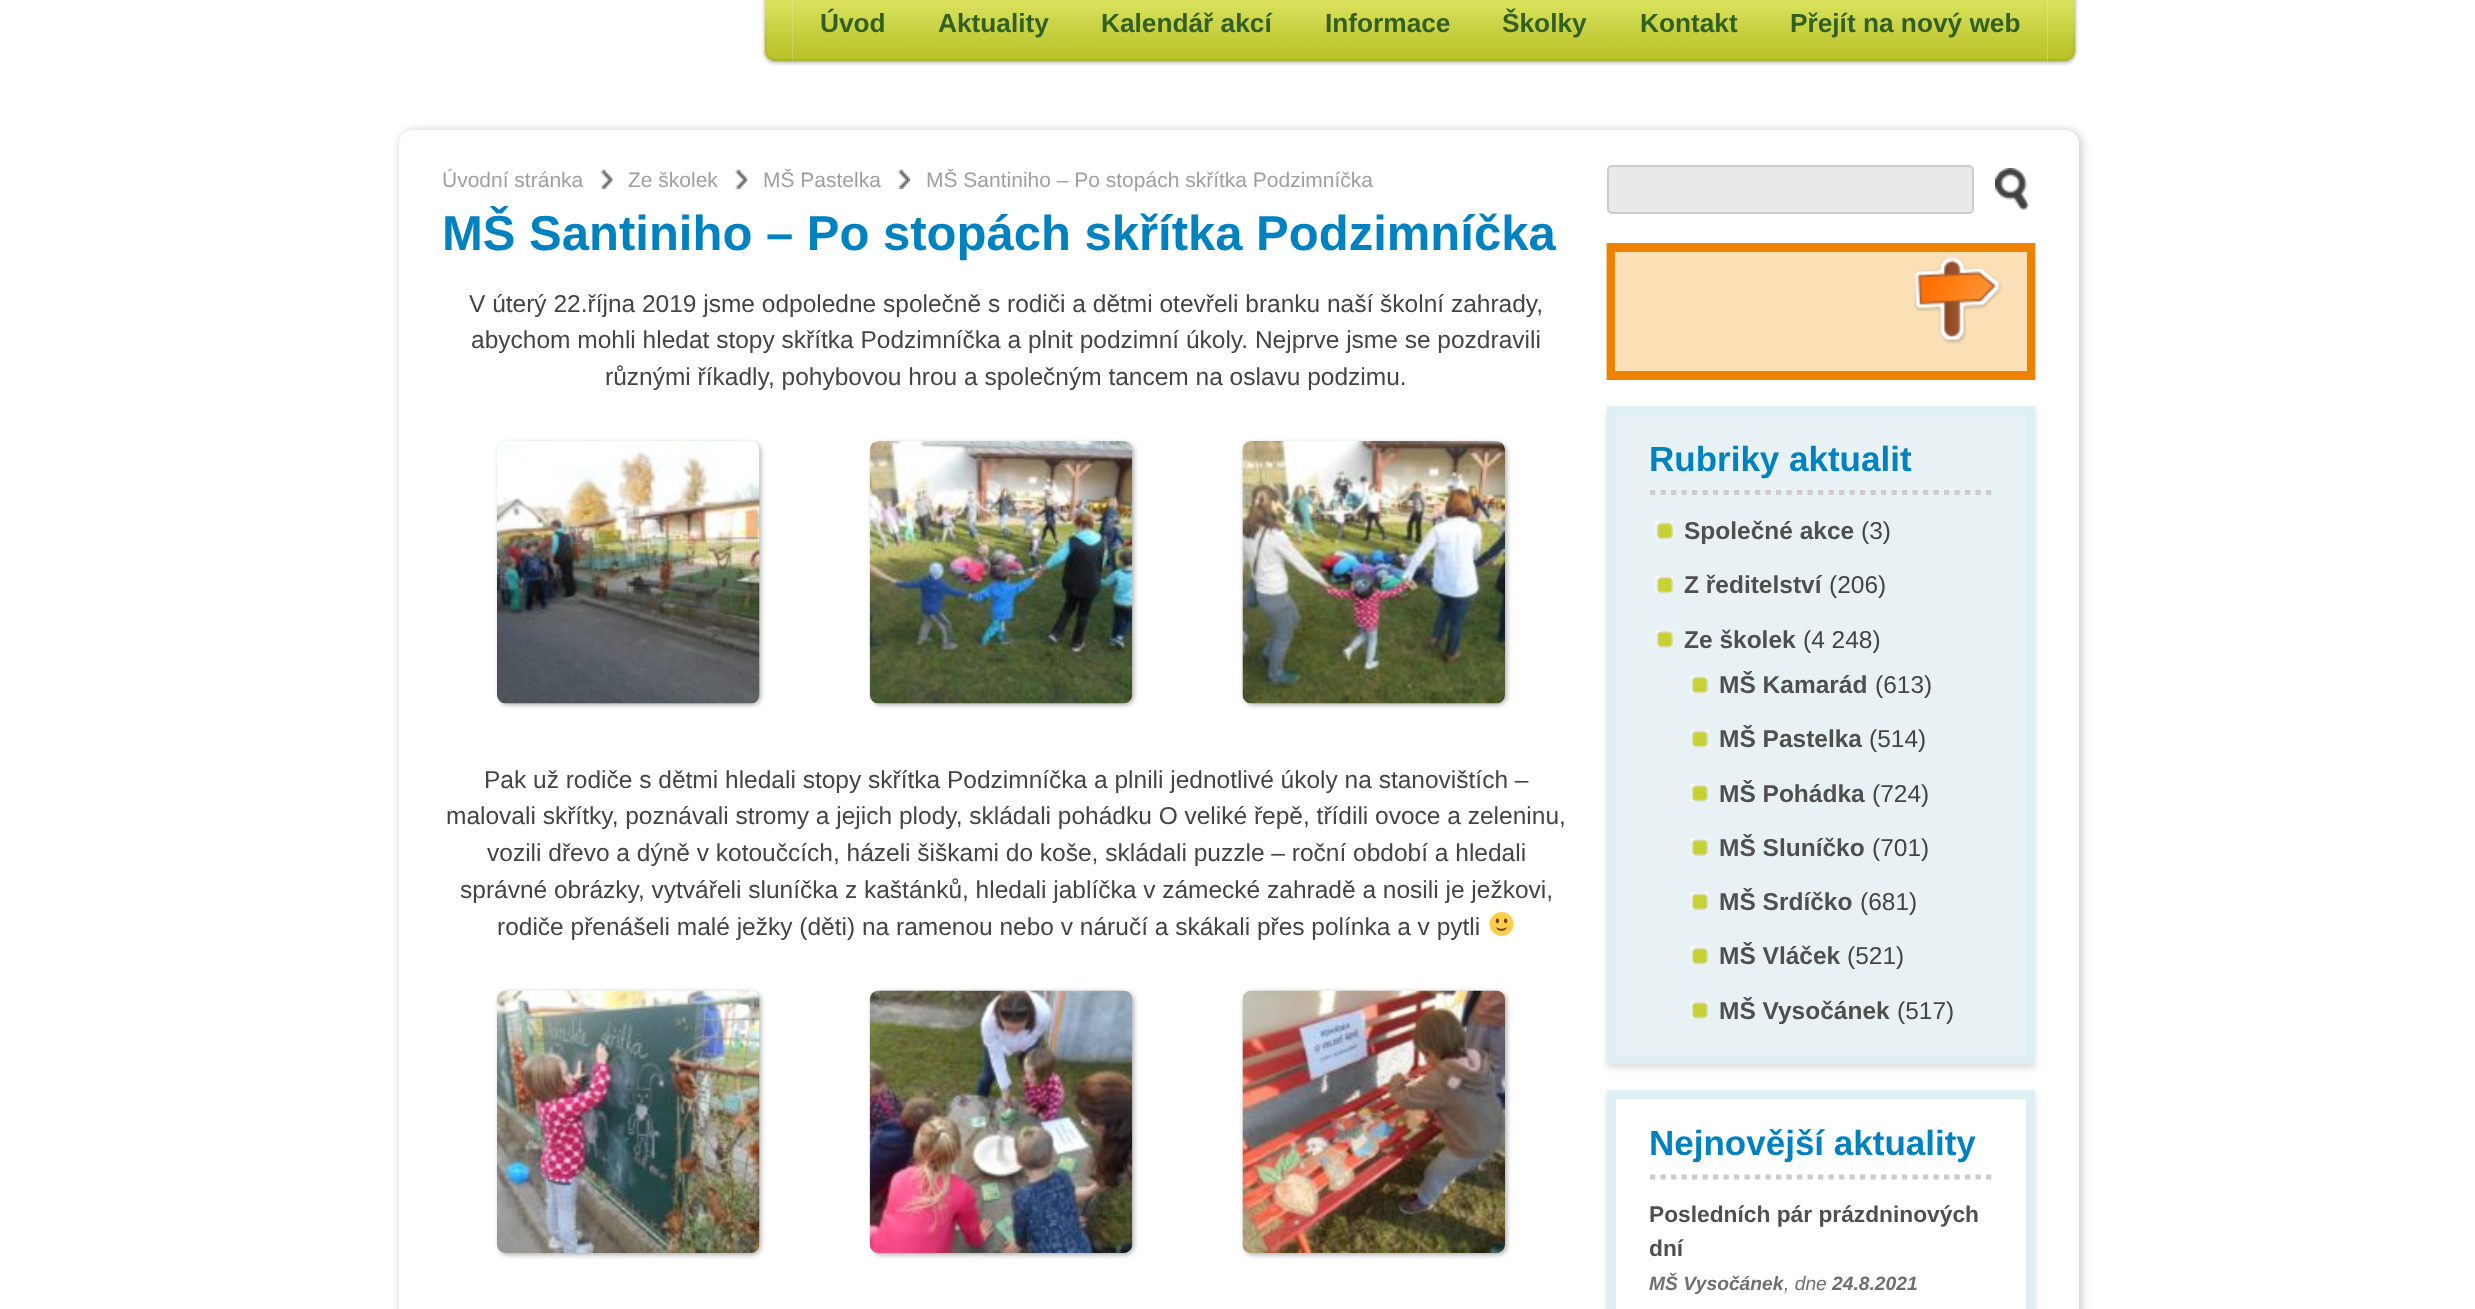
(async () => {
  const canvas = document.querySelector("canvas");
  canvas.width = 2475;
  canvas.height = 1309;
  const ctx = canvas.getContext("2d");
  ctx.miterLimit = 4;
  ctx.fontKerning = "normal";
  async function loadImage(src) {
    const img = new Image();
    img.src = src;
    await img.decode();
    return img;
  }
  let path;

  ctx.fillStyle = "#ffffff";
  ctx.fillRect(0, 0, 2475, 1309);
  ctx.drawImage(await loadImage("img/1.png"), 761, 0, 32, 66);
  ctx.drawImage(await loadImage("img/2.png"), 792, 0, 1256, 66);
  ctx.drawImage(await loadImage("img/3.png"), 2047, 0, 32, 66);
  ctx.fillStyle = "rgba(102, 102, 102, 0.4)";
  ctx.filter = "blur(5px)";
  ctx.beginPath();
  ctx.roundRect(401, 131, 1680, 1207, 14);
  ctx.fill();
  ctx.filter = "none";
  ctx.fillStyle = "#ffffff";
  ctx.beginPath();
  ctx.roundRect(399, 130, 1680, 1179, [14, 14, 0, 0]);
  ctx.fill();
  ctx.drawImage(await loadImage("img/4.png"), 600, 169, 13, 20);
  ctx.drawImage(await loadImage("img/5.png"), 735, 169, 13, 20);
  ctx.drawImage(await loadImage("img/6.png"), 897, 169, 13, 20);
  ctx.fillStyle = "#b1b1b1";
  ctx.filter = "blur(2.5px)";
  ctx.beginPath();
  ctx.roundRect(499, 443, 262, 262, 9);
  ctx.fill();
  ctx.filter = "none";
  ctx.drawImage(await loadImage("img/7.png"), 497, 441, 263, 263);
  ctx.filter = "blur(2.5px)";
  ctx.beginPath();
  ctx.roundRect(872, 443, 262, 262, 9);
  ctx.fill();
  ctx.filter = "none";
  ctx.drawImage(await loadImage("img/8.png"), 869, 441, 264, 263);
  ctx.filter = "blur(2.5px)";
  ctx.beginPath();
  ctx.roundRect(1244, 443, 263, 262, 9);
  ctx.fill();
  ctx.filter = "none";
  ctx.drawImage(await loadImage("img/9.png"), 1242, 441, 263, 263);
  ctx.drawImage(await loadImage("img/10.png"), 1489, 912, 25, 24);
  ctx.filter = "blur(2.5px)";
  ctx.beginPath();
  ctx.roundRect(499, 992, 262, 263, 9);
  ctx.fill();
  ctx.filter = "none";
  ctx.drawImage(await loadImage("img/11.png"), 497, 990, 263, 263);
  ctx.filter = "blur(2.5px)";
  ctx.beginPath();
  ctx.roundRect(872, 992, 262, 263, 9);
  ctx.fill();
  ctx.filter = "none";
  ctx.drawImage(await loadImage("img/12.png"), 869, 990, 264, 263);
  ctx.filter = "blur(2.5px)";
  ctx.beginPath();
  ctx.roundRect(1244, 992, 263, 263, 9);
  ctx.fill();
  ctx.filter = "none";
  ctx.drawImage(await loadImage("img/13.png"), 1242, 990, 263, 263);
  ctx.fillStyle = "#e9e9e9";
  ctx.beginPath();
  ctx.roundRect(1608, 166, 365, 47, 4);
  ctx.fill();
  ctx.strokeStyle = "#cccccc";
  ctx.lineWidth = 2;
  ctx.stroke();
  ctx.drawImage(await loadImage("img/14.png"), 1995, 168, 34, 42);
  path = new Path2D("M1611 247.5H2031V375.5H1611Z");
  ctx.strokeStyle = "#ef8200";
  ctx.lineWidth = 8.8;
  ctx.stroke(path);
  ctx.fillStyle = "#fce0b5";
  ctx.fillRect(1615, 252, 412, 119);
  ctx.drawImage(await loadImage("img/15.png"), 1912, 255, 90, 89);
  ctx.fillStyle = "#dddddd";
  ctx.filter = "blur(3.5px)";
  ctx.beginPath();
  ctx.rect(1607, 410, 428, 658);
  ctx.fill();
  ctx.filter = "none";
  ctx.fillStyle = "#e8f2f5";
  ctx.beginPath();
  ctx.rect(1611.5, 410.5, 419, 649);
  ctx.fill();
  ctx.strokeStyle = "#dff0f5";
  ctx.lineWidth = 9;
  ctx.stroke();
  path = new Path2D("M1650 492.5H1991.5");
  ctx.strokeStyle = "#cccccc";
  ctx.lineWidth = 5.2;
  ctx.setLineDash([5.25, 5.25]);
  ctx.stroke(path);
  ctx.drawImage(await loadImage("img/16.png"), 1655, 521, 18, 18);
  ctx.drawImage(await loadImage("img/17.png"), 1655, 575, 18, 19);
  ctx.drawImage(await loadImage("img/18.png"), 1655, 630, 18, 18);
  ctx.drawImage(await loadImage("img/16.png"), 1690, 675, 18, 18);
  ctx.drawImage(await loadImage("img/17.png"), 1690, 729, 18, 19);
  ctx.drawImage(await loadImage("img/18.png"), 1690, 784, 18, 18);
  ctx.drawImage(await loadImage("img/19.png"), 1690, 838, 18, 18);
  ctx.drawImage(await loadImage("img/16.png"), 1690, 892, 18, 18);
  ctx.drawImage(await loadImage("img/17.png"), 1690, 946, 18, 19);
  ctx.drawImage(await loadImage("img/18.png"), 1690, 1001, 18, 18);
  ctx.save();
  path = new Path2D("M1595 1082H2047V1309H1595ZM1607 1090H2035V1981H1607Z");
  ctx.clip(path, "evenodd");
  ctx.fillStyle = "#dddddd";
  ctx.filter = "blur(3.5px)";
  ctx.beginPath();
  ctx.rect(1607, 1094, 428, 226);
  ctx.fill();
  ctx.filter = "none";
  ctx.restore();
  ctx.strokeStyle = "#dff0f5";
  ctx.lineWidth = 9;
  ctx.setLineDash([]);
  ctx.strokeRect(1611.5, 1094.5, 419, 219);
  path = new Path2D("M1650 1177H1991.5");
  ctx.strokeStyle = "#cccccc";
  ctx.lineWidth = 5.2;
  ctx.setLineDash([5.25, 5.25]);
  ctx.stroke(path);
  ctx.font = "bold 26.25px Liberation Sans";
  ctx.fillStyle = "#325f23";
  for (const [text, x, y] of [
    ["Úvod", 820, 32],
    ["Aktuality", 938, 32],
    ["Kalendář akcí", 1101, 32],
    ["Informace", 1325, 32],
    ["Školky", 1502, 32],
    ["Kontakt", 1640, 32],
    ["Přejít na nový web", 1790, 32],
  ]) {
    ctx.fillText(text, x, y);
  }
  ctx.font = "21px Liberation Sans";
  ctx.fillStyle = "#9f9f9f";
  for (const [text, x, y] of [
    ["Úvodní stránka", 442, 187],
    ["Ze školek", 628, 187],
    ["MŠ Pastelka", 763, 187],
    ["MŠ Santiniho – Po stopách skřítka Podzimníčka", 926, 187],
  ]) {
    ctx.fillText(text, x, y);
  }
  ctx.font = "bold 49px Liberation Sans";
  ctx.fillStyle = "#0082c0";
  ctx.fillText("MŠ Santiniho – Po stopách skřítka Podzimníčka", 442, 250);
  ctx.font = "24.5px Liberation Sans";
  ctx.fillStyle = "#444444";
  for (const [text, x, y] of [
    ["V úterý 22.října 2019 jsme odpoledne společně s rodiči a dětmi otevřeli branku naší školní zahrady,", 469, 312],
    ["abychom mohli hledat stopy skřítka Podzimníčka a plnit podzimní úkoly. Nejprve jsme se pozdravili", 471, 348],
    ["různými říkadly, pohybovou hrou a společným tancem na oslavu podzimu.", 605, 385],
    ["Pak už rodiče s dětmi hledali stopy skřítka Podzimníčka a plnili jednotlivé úkoly na stanovištích –", 484, 788],
    ["malovali skřítky, poznávali stromy a jejich plody, skládali pohádku O veliké řepě, třídili ovoce a zeleninu,", 446, 824],
    ["vozili dřevo a dýně v kotoučcích, házeli šiškami do koše, skládali puzzle – roční období a hledali", 487, 861],
    ["správné obrázky, vytvářeli sluníčka z kaštánků, hledali jablíčka v zámecké zahradě a nosili je ježkovi,", 460, 898],
    ["rodiče přenášeli malé ježky (děti) na ramenou nebo v náručí a skákali přes polínka a v pytli", 497, 935],
  ]) {
    ctx.fillText(text, x, y);
  }
  ctx.font = "bold 35px Liberation Sans";
  ctx.fillStyle = "#0082c0";
  ctx.fillText("Rubriky aktualit", 1649, 471);
  ctx.font = "bold 24.5px Liberation Sans";
  ctx.fillStyle = "#4f4f4f";
  ctx.fillText("Společné akce", 1684, 539);
  ctx.font = "24.5px Liberation Sans";
  ctx.fillStyle = "#444444";
  ctx.fillText("(3)", 1861, 539);
  ctx.font = "bold 24.5px Liberation Sans";
  ctx.fillStyle = "#4f4f4f";
  ctx.fillText("Z ředitelství", 1684, 593);
  ctx.font = "24.5px Liberation Sans";
  ctx.fillStyle = "#444444";
  ctx.fillText("(206)", 1829, 593);
  ctx.font = "bold 24.5px Liberation Sans";
  ctx.fillStyle = "#4f4f4f";
  ctx.fillText("Ze školek", 1684, 648);
  ctx.font = "24.5px Liberation Sans";
  ctx.fillStyle = "#444444";
  ctx.fillText("(4 248)", 1803, 648);
  ctx.font = "bold 24.5px Liberation Sans";
  ctx.fillStyle = "#4f4f4f";
  ctx.fillText("MŠ Kamarád", 1719, 693);
  ctx.font = "24.5px Liberation Sans";
  ctx.fillStyle = "#444444";
  ctx.fillText("(613)", 1875, 693);
  ctx.font = "bold 24.5px Liberation Sans";
  ctx.fillStyle = "#4f4f4f";
  ctx.fillText("MŠ Pastelka", 1719, 747);
  ctx.font = "24.5px Liberation Sans";
  ctx.fillStyle = "#444444";
  ctx.fillText("(514)", 1869, 747);
  ctx.font = "bold 24.5px Liberation Sans";
  ctx.fillStyle = "#4f4f4f";
  ctx.fillText("MŠ Pohádka", 1719, 802);
  ctx.font = "24.5px Liberation Sans";
  ctx.fillStyle = "#444444";
  ctx.fillText("(724)", 1872, 802);
  ctx.font = "bold 24.5px Liberation Sans";
  ctx.fillStyle = "#4f4f4f";
  ctx.fillText("MŠ Sluníčko", 1719, 856);
  ctx.font = "24.5px Liberation Sans";
  ctx.fillStyle = "#444444";
  ctx.fillText("(701)", 1872, 856);
  ctx.font = "bold 24.5px Liberation Sans";
  ctx.fillStyle = "#4f4f4f";
  ctx.fillText("MŠ Srdíčko", 1719, 910);
  ctx.font = "24.5px Liberation Sans";
  ctx.fillStyle = "#444444";
  ctx.fillText("(681)", 1860, 910);
  ctx.font = "bold 24.5px Liberation Sans";
  ctx.fillStyle = "#4f4f4f";
  ctx.fillText("MŠ Vláček", 1719, 964);
  ctx.font = "24.5px Liberation Sans";
  ctx.fillStyle = "#444444";
  ctx.fillText("(521)", 1847, 964);
  ctx.font = "bold 24.5px Liberation Sans";
  ctx.fillStyle = "#4f4f4f";
  ctx.fillText("MŠ Vysočánek", 1719, 1019);
  ctx.font = "24.5px Liberation Sans";
  ctx.fillStyle = "#444444";
  ctx.fillText("(517)", 1897, 1019);
  ctx.font = "bold 35px Liberation Sans";
  ctx.fillStyle = "#0082c0";
  ctx.fillText("Nejnovější aktuality", 1649, 1155);
  ctx.font = "bold 22.75px Liberation Sans";
  ctx.fillStyle = "#4f4f4f";
  ctx.fillText("Posledních pár prázdninových", 1649, 1222);
  ctx.fillText("dní", 1649, 1256);
  ctx.font = "italic bold 19.25px Liberation Sans";
  ctx.fillStyle = "#6f6f6f";
  ctx.fillText("MŠ Vysočánek", 1649, 1290);
  ctx.font = "italic 19.25px Liberation Sans";
  ctx.fillText(", dne", 1784, 1290);
  ctx.font = "italic bold 19.25px Liberation Sans";
  ctx.fillText("24.8.2021", 1832, 1290);
})();
